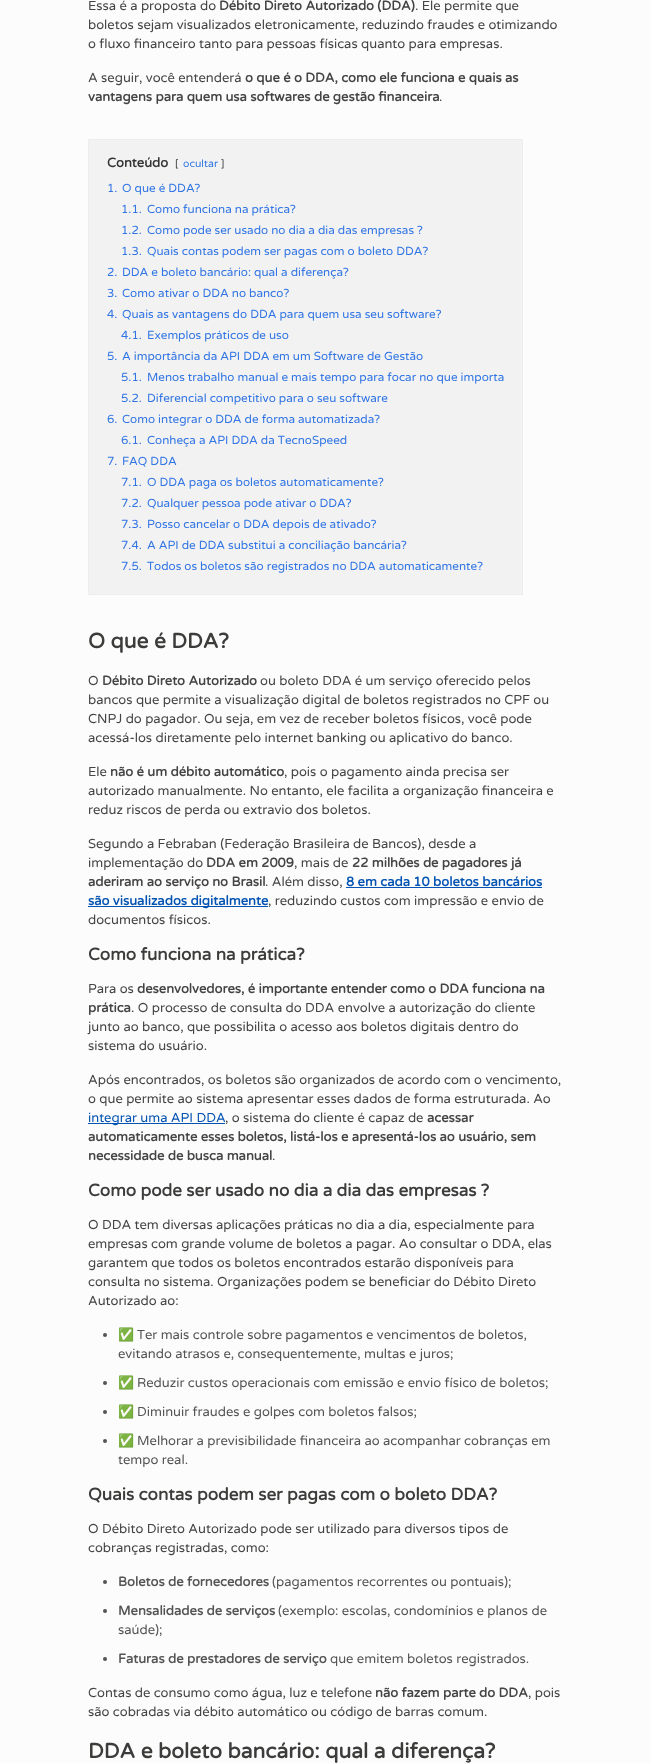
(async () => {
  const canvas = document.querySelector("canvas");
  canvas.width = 650;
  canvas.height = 1763;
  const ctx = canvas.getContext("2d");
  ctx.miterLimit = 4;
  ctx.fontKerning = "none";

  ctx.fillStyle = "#fcfcfc";
  ctx.fillRect(0, 0, 650, 1763);
  ctx.fillStyle = "#f2f2f2";
  ctx.beginPath();
  ctx.rect(88.5, 139.5, 434, 455);
  ctx.fill();
  ctx.strokeStyle = "#ededed";
  ctx.stroke();
  for (const [x, y, w, h, color] of [
    [346, 887, 196, 1, "#0353b3"],
    [88, 906, 180, 1, "#0353b3"],
    [88, 1123, 137, 1, "#0353b3"],
  ]) {
    ctx.fillStyle = color;
    ctx.fillRect(x, y, w, h);
  }
  ctx.fillStyle = "#545454";
  ctx.beginPath();
  ctx.arc(105, 1335, 2, 0, Math.PI * 2);
  ctx.fill();
  ctx.beginPath();
  ctx.arc(105, 1383, 2, 0, Math.PI * 2);
  ctx.fill();
  ctx.beginPath();
  ctx.arc(105, 1412, 2, 0, Math.PI * 2);
  ctx.fill();
  ctx.beginPath();
  ctx.arc(105, 1441, 2, 0, Math.PI * 2);
  ctx.fill();
  ctx.beginPath();
  ctx.arc(105, 1582, 2, 0, Math.PI * 2);
  ctx.fill();
  ctx.beginPath();
  ctx.arc(105, 1611, 2, 0, Math.PI * 2);
  ctx.fill();
  ctx.beginPath();
  ctx.arc(105, 1659, 2, 0, Math.PI * 2);
  ctx.fill();
  ctx.font = "13px Varela Round";
  ctx.fillStyle = "#444444";
  ctx.fillText("Essa é a proposta do", 88, 10);
  ctx.font = "bold 13px Varela Round";
  ctx.fillText("Débito Direto Autorizado (DDA)", 219, 10);
  ctx.font = "13px Varela Round";
  for (const [text, x, y] of [
    [". Ele permite que", 415, 10],
    ["boletos sejam visualizados eletronicamente, reduzindo fraudes e otimizando", 88, 29],
    ["o fluxo financeiro tanto para pessoas físicas quanto para empresas.", 88, 48],
    ["A seguir, você entenderá", 88, 82],
  ]) {
    ctx.fillText(text, x, y);
  }
  ctx.font = "bold 13px Varela Round";
  ctx.fillText("o que é o DDA, como ele funciona e quais as", 245, 82);
  ctx.fillText("vantagens para quem usa softwares de gestão financeira", 88, 101);
  ctx.font = "13px Varela Round";
  ctx.fillText(".", 439, 101);
  ctx.font = "bold 13px Varela Round";
  ctx.fillStyle = "#333333";
  ctx.fillText("Conteúdo", 107, 167);
  ctx.font = "10.5px Varela Round";
  ctx.fillText("[", 175, 167);
  ctx.fillStyle = "#3175e4";
  ctx.fillText("ocultar", 183, 167);
  ctx.fillStyle = "#333333";
  ctx.fillText("]", 221, 167);
  ctx.font = "11.7px Varela Round";
  ctx.fillStyle = "#3175e4";
  for (const [text, x, y] of [
    ["1.", 107, 192],
    ["O que é DDA?", 122, 192],
    ["1.1.", 121, 213],
    ["Como funciona na prática?", 147, 213],
    ["1.2.", 121, 234],
    ["Como pode ser usado no dia a dia das empresas ?", 147, 234],
    ["1.3.", 121, 255],
    ["Quais contas podem ser pagas com o boleto DDA?", 147, 255],
    ["2.", 107, 276],
    ["DDA e boleto bancário: qual a diferença?", 122, 276],
    ["3.", 107, 297],
    ["Como ativar o DDA no banco?", 122, 297],
    ["4.", 107, 318],
    ["Quais as vantagens do DDA para quem usa seu software?", 122, 318],
    ["4.1.", 121, 339],
    ["Exemplos práticos de uso", 147, 339],
    ["5.", 107, 360],
    ["A importância da API DDA em um Software de Gestão", 122, 360],
    ["5.1.", 121, 381],
    ["Menos trabalho manual e mais tempo para focar no que importa", 147, 381],
    ["5.2.", 121, 402],
    ["Diferencial competitivo para o seu software", 147, 402],
    ["6.", 107, 423],
    ["Como integrar o DDA de forma automatizada?", 122, 423],
    ["6.1.", 121, 444],
    ["Conheça a API DDA da TecnoSpeed", 147, 444],
    ["7.", 107, 465],
    ["FAQ DDA", 122, 465],
    ["7.1.", 121, 486],
    ["O DDA paga os boletos automaticamente?", 147, 486],
    ["7.2.", 121, 507],
    ["Qualquer pessoa pode ativar o DDA?", 147, 507],
    ["7.3.", 121, 528],
    ["Posso cancelar o DDA depois de ativado?", 147, 528],
    ["7.4.", 121, 549],
    ["A API de DDA substitui a conciliação bancária?", 147, 549],
    ["7.5.", 121, 570],
    ["Todos os boletos são registrados no DDA automaticamente?", 147, 570],
  ]) {
    ctx.fillText(text, x, y);
  }
  ctx.font = "bold 21px Varela Round";
  ctx.fillStyle = "#3c3c3b";
  ctx.fillText("O que é DDA?", 88, 648);
  ctx.font = "13px Varela Round";
  ctx.fillStyle = "#444444";
  ctx.fillText("O", 88, 685);
  ctx.font = "bold 13px Varela Round";
  ctx.fillText("Débito Direto Autorizado", 102, 685);
  ctx.font = "13px Varela Round";
  for (const [text, x, y] of [
    ["ou boleto DDA é um serviço oferecido pelos", 260, 685],
    ["bancos que permite a visualização digital de boletos registrados no CPF ou", 88, 704],
    ["CNPJ do pagador. Ou seja, em vez de receber boletos físicos, você pode", 88, 723],
    ["acessá-los diretamente pelo internet banking ou aplicativo do banco.", 88, 742],
    ["Ele", 88, 776],
  ]) {
    ctx.fillText(text, x, y);
  }
  ctx.font = "bold 13px Varela Round";
  ctx.fillText("não é um débito automático", 110, 776);
  ctx.font = "13px Varela Round";
  for (const [text, x, y] of [
    [", pois o pagamento ainda precisa ser", 284, 776],
    ["autorizado manualmente. No entanto, ele facilita a organização financeira e", 88, 795],
    ["reduz riscos de perda ou extravio dos boletos.", 88, 814],
    ["Segundo a Febraban (Federação Brasileira de Bancos), desde a", 88, 848],
    ["implementação do", 88, 867],
  ]) {
    ctx.fillText(text, x, y);
  }
  ctx.font = "bold 13px Varela Round";
  ctx.fillText("DDA em 2009", 206, 867);
  ctx.font = "13px Varela Round";
  ctx.fillText(", mais de", 294, 867);
  ctx.font = "bold 13px Varela Round";
  ctx.fillText("22 milhões de pagadores já", 352, 867);
  ctx.fillText("aderiram ao serviço no Brasil", 88, 886);
  ctx.font = "13px Varela Round";
  ctx.fillText(". Além disso,", 265, 886);
  ctx.font = "bold 13px Varela Round";
  ctx.fillStyle = "#0353b3";
  ctx.fillText("8 em cada 10 boletos bancários", 346, 886);
  ctx.fillText("são visualizados digitalmente", 88, 905);
  ctx.font = "13px Varela Round";
  ctx.fillStyle = "#444444";
  ctx.fillText(", reduzindo custos com impressão e envio de", 268, 905);
  ctx.fillText("documentos físicos.", 88, 924);
  ctx.font = "bold 17px Varela Round";
  ctx.fillStyle = "#3c3c3b";
  ctx.fillText("Como funciona na prática?", 88, 960);
  ctx.font = "13px Varela Round";
  ctx.fillStyle = "#444444";
  ctx.fillText("Para os", 88, 993);
  ctx.font = "bold 13px Varela Round";
  ctx.fillText("desenvolvedores, é importante entender como o DDA funciona na", 137, 993);
  ctx.fillText("prática", 88, 1012);
  ctx.font = "13px Varela Round";
  for (const [text, x, y] of [
    [". O processo de consulta do DDA envolve a autorização do cliente", 131, 1012],
    ["junto ao banco, que possibilita o acesso aos boletos digitais dentro do", 88, 1031],
    ["sistema do usuário.", 88, 1050],
    ["Após encontrados, os boletos são organizados de acordo com o vencimento,", 88, 1084],
    ["o que permite ao sistema apresentar esses dados de forma estruturada. Ao", 88, 1103],
  ]) {
    ctx.fillText(text, x, y);
  }
  ctx.fillStyle = "#0353b3";
  ctx.fillText("integrar uma API DDA", 88, 1122);
  ctx.fillStyle = "#444444";
  ctx.fillText(", o sistema do cliente é capaz de", 225, 1122);
  ctx.font = "bold 13px Varela Round";
  for (const [text, x, y] of [
    ["acessar", 427, 1122],
    ["automaticamente esses boletos, listá-los e apresentá-los ao usuário, sem", 88, 1141],
    ["necessidade de busca manual", 88, 1160],
  ]) {
    ctx.fillText(text, x, y);
  }
  ctx.font = "13px Varela Round";
  ctx.fillText(".", 272, 1160);
  ctx.font = "bold 17px Varela Round";
  ctx.fillStyle = "#3c3c3b";
  ctx.fillText("Como pode ser usado no dia a dia das empresas ?", 88, 1196);
  ctx.font = "13px Varela Round";
  ctx.fillStyle = "#444444";
  for (const [text, x, y] of [
    ["O DDA tem diversas aplicações práticas no dia a dia, especialmente para", 88, 1229],
    ["empresas com grande volume de boletos a pagar. Ao consultar o DDA, elas", 88, 1248],
    ["garantem que todos os boletos encontrados estarão disponíveis para", 88, 1267],
    ["consulta no sistema. Organizações podem se beneficiar do Débito Direto", 88, 1286],
    ["Autorizado ao:", 88, 1305],
  ]) {
    ctx.fillText(text, x, y);
  }
  ctx.font = "13px Noto Color Emoji";
  ctx.fillStyle = "#545454";
  ctx.fillText("✅", 118, 1339);
  ctx.font = "13px Varela Round";
  ctx.fillText("Ter mais controle sobre pagamentos e vencimentos de boletos,", 137, 1339);
  ctx.fillText("evitando atrasos e, consequentemente, multas e juros;", 118, 1358);
  ctx.font = "13px Noto Color Emoji";
  ctx.fillText("✅", 118, 1387);
  ctx.font = "13px Varela Round";
  ctx.fillText("Reduzir custos operacionais com emissão e envio físico de boletos;", 137, 1387);
  ctx.font = "13px Noto Color Emoji";
  ctx.fillText("✅", 118, 1416);
  ctx.font = "13px Varela Round";
  ctx.fillText("Diminuir fraudes e golpes com boletos falsos;", 137, 1416);
  ctx.font = "13px Noto Color Emoji";
  ctx.fillText("✅", 118, 1445);
  ctx.font = "13px Varela Round";
  ctx.fillText("Melhorar a previsibilidade financeira ao acompanhar cobranças em", 137, 1445);
  ctx.fillText("tempo real.", 118, 1464);
  ctx.font = "bold 17px Varela Round";
  ctx.fillStyle = "#3c3c3b";
  ctx.fillText("Quais contas podem ser pagas com o boleto DDA?", 88, 1500);
  ctx.font = "13px Varela Round";
  ctx.fillStyle = "#444444";
  ctx.fillText("O Débito Direto Autorizado pode ser utilizado para diversos tipos de", 88, 1533);
  ctx.fillText("cobranças registradas, como:", 88, 1552);
  ctx.font = "bold 13px Varela Round";
  ctx.fillStyle = "#545454";
  ctx.fillText("Boletos de fornecedores", 118, 1586);
  ctx.font = "13px Varela Round";
  ctx.fillText("(pagamentos recorrentes ou pontuais);", 272, 1586);
  ctx.font = "bold 13px Varela Round";
  ctx.fillText("Mensalidades de serviços", 118, 1615);
  ctx.font = "13px Varela Round";
  ctx.fillText("(exemplo: escolas, condomínios e planos de", 278, 1615);
  ctx.fillText("saúde);", 118, 1634);
  ctx.font = "bold 13px Varela Round";
  ctx.fillText("Faturas de prestadores de serviço", 118, 1663);
  ctx.font = "13px Varela Round";
  ctx.fillText("que emitem boletos registrados.", 330, 1663);
  ctx.fillStyle = "#444444";
  ctx.fillText("Contas de consumo como água, luz e telefone", 88, 1697);
  ctx.font = "bold 13px Varela Round";
  ctx.fillText("não fazem parte do DDA", 375, 1697);
  ctx.font = "13px Varela Round";
  ctx.fillText(", pois", 528, 1697);
  ctx.fillText("são cobradas via débito automático ou código de barras comum.", 88, 1716);
  ctx.font = "bold 21px Varela Round";
  ctx.fillStyle = "#3c3c3b";
  ctx.fillText("DDA e boleto bancário: qual a diferença?", 88, 1758);
})();
